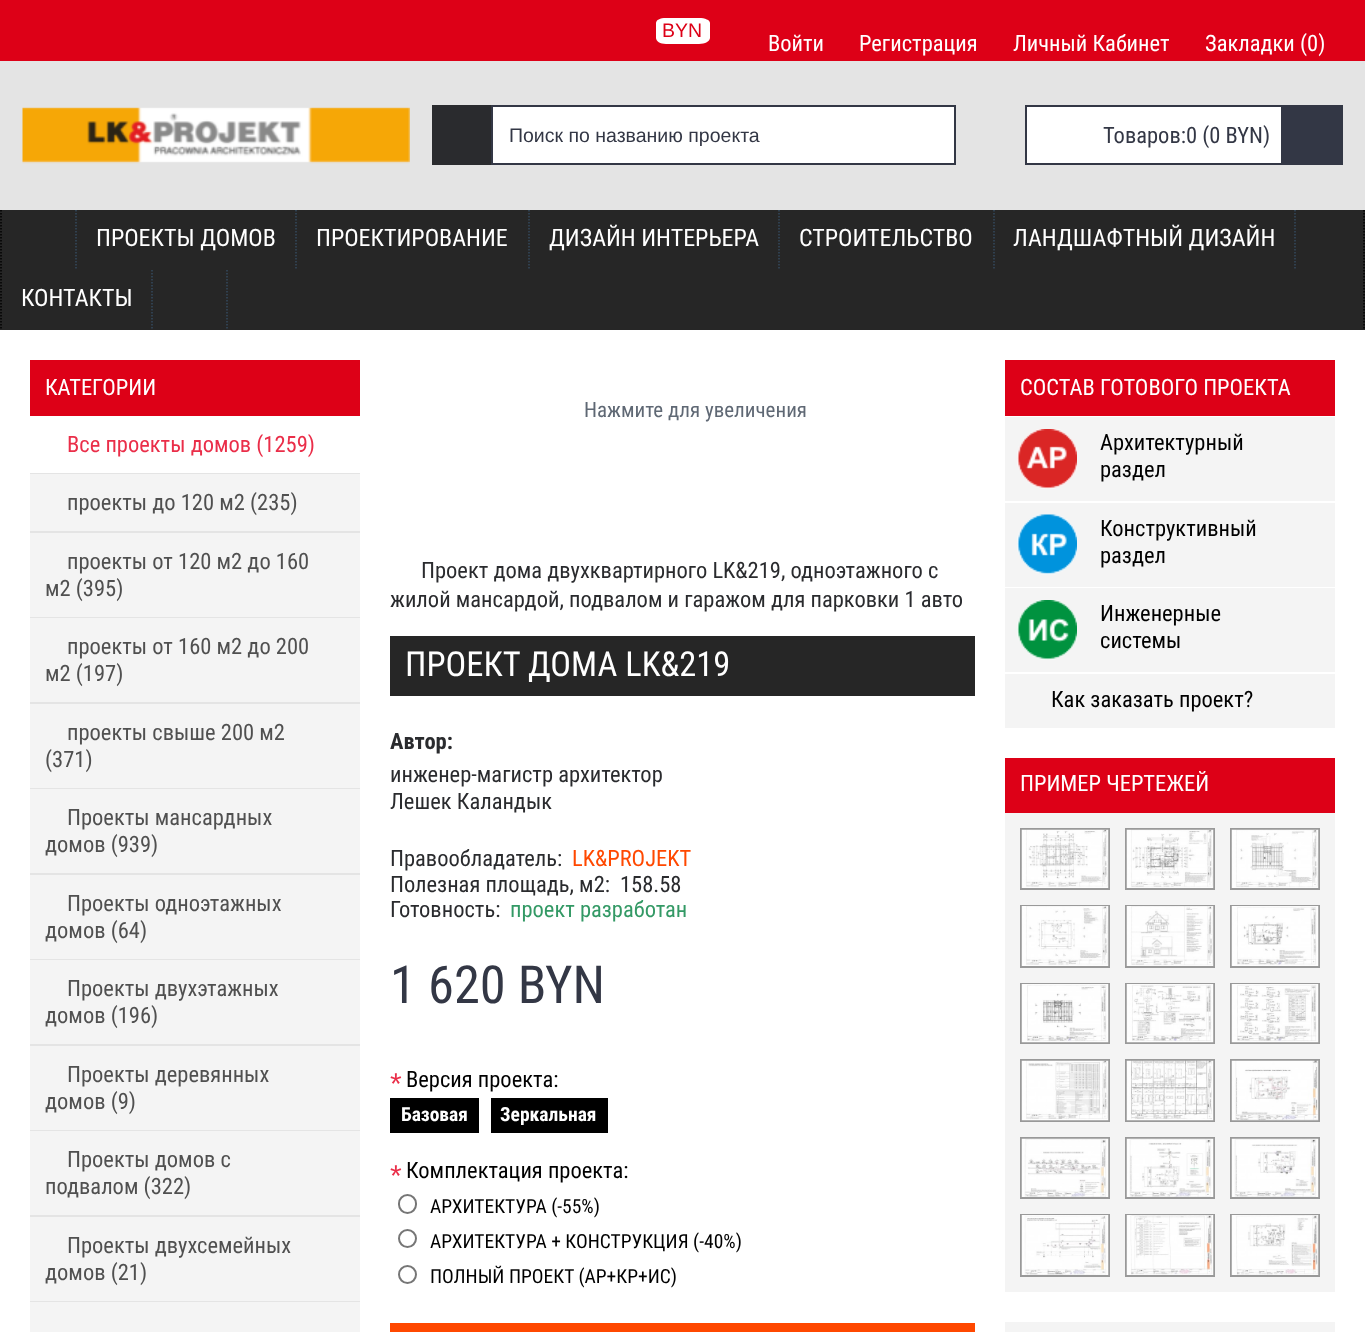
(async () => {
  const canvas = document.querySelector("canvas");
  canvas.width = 1365;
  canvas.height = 1332;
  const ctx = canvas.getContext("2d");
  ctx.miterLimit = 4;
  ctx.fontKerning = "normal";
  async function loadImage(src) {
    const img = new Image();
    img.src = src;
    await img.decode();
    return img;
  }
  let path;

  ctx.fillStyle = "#ffffff";
  ctx.fillRect(0, 0, 1365, 1332);
  ctx.fillStyle = "#dd0017";
  ctx.fillRect(0, 0, 1365, 61);
  ctx.fillStyle = "#ffffff";
  path = new Path2D("M666 18H699C705 18 710 20 710 23V38C710 41 705 44 699 44H666C660 44 656 41 656 38V23C656 20 660 18 666 18Z");
  ctx.fill(path);
  ctx.fillStyle = "#e4e4e4";
  ctx.fillRect(0, 61, 1365, 149);
  ctx.drawImage(await loadImage("img/1.png"), 22, 107, 388, 57);
  ctx.fillStyle = "#ffffff";
  ctx.fillRect(493, 107, 461, 56);
  ctx.strokeStyle = "#333745";
  ctx.lineWidth = 2;
  ctx.strokeRect(433, 106, 522, 58);
  for (const [x, y, w, h, color] of [
    [432, 105, 59, 60, "#2a2b2e"],
    [491, 105, 2, 60, "#333745"],
    [1027, 107, 254, 56, "#ffffff"],
  ]) {
    ctx.fillStyle = color;
    ctx.fillRect(x, y, w, h);
  }
  ctx.strokeRect(1026, 106, 316, 58);
  ctx.fillStyle = "#333745";
  ctx.fillRect(1281, 107, 60, 56);
  ctx.fillStyle = "#262626";
  ctx.fillRect(0, 210, 1365, 120);
  path = new Path2D("M1364 210V330");
  ctx.strokeStyle = "#000000";
  ctx.lineWidth = 1.5;
  ctx.setLineDash([1.5, 1.5]);
  ctx.stroke(path);
  path = new Path2D("M1 210V330");
  ctx.stroke(path);
  path = new Path2D("M76 210V270");
  ctx.strokeStyle = "#34495e";
  ctx.stroke(path);
  path = new Path2D("M296 210V270");
  ctx.stroke(path);
  path = new Path2D("M529 210V270");
  ctx.stroke(path);
  path = new Path2D("M779 210V270");
  ctx.stroke(path);
  path = new Path2D("M994 210V270");
  ctx.stroke(path);
  path = new Path2D("M1295 210V270");
  ctx.stroke(path);
  path = new Path2D("M152 270V330");
  ctx.stroke(path);
  path = new Path2D("M227 270V330");
  ctx.stroke(path);
  for (const [x, y, w, h, color] of [
    [30, 533, 330, 768, "#f4f4f4"],
    [30, 360, 330, 56, "#dd0017"],
    [30, 473, 330, 1, "#e4e4e4"],
    [30, 474, 330, 57, "#f4f4f4"],
    [30, 531, 330, 2, "#e4e4e4"],
    [30, 617, 330, 1, "#e4e4e4"],
    [30, 702, 330, 2, "#e4e4e4"],
    [30, 788, 330, 1, "#e4e4e4"],
    [30, 873, 330, 2, "#e4e4e4"],
    [30, 959, 330, 1, "#e4e4e4"],
    [30, 1044, 330, 2, "#e4e4e4"],
    [30, 1130, 330, 1, "#e4e4e4"],
    [30, 1215, 330, 2, "#e4e4e4"],
    [30, 1301, 330, 1, "#e4e4e4"],
    [30, 1302, 330, 30, "#f4f4f4"],
    [390, 636, 585, 60, "#262626"],
    [390, 1098, 89, 35, "#000000"],
    [491, 1098, 117, 35, "#000000"],
  ]) {
    ctx.fillStyle = color;
    ctx.fillRect(x, y, w, h);
  }
  ctx.beginPath();
  ctx.roundRect(399, 1195, 17, 18, 8.5);
  ctx.strokeStyle = "#767676";
  ctx.lineWidth = 2;
  ctx.setLineDash([]);
  ctx.stroke();
  ctx.beginPath();
  ctx.arc(407.5, 1238.5, 8.5, 0, Math.PI * 2);
  ctx.stroke();
  ctx.beginPath();
  ctx.arc(407.5, 1274.5, 8.5, 0, Math.PI * 2);
  ctx.stroke();
  for (const [x, y, w, h, color] of [
    [390, 1323, 585, 9, "#ff4800"],
    [1005, 360, 330, 56, "#dd0017"],
    [1005, 417, 330, 84, "#f4f4f4"],
  ]) {
    ctx.fillStyle = color;
    ctx.fillRect(x, y, w, h);
  }
  ctx.drawImage(await loadImage("img/2.png"), 1017, 429, 60, 60);
  ctx.fillRect(1005, 503, 330, 84);
  ctx.drawImage(await loadImage("img/3.png"), 1017, 514, 60, 61);
  ctx.fillRect(1005, 588, 330, 84);
  ctx.drawImage(await loadImage("img/4.png"), 1017, 600, 60, 60);
  for (const [x, y, w, h, color] of [
    [1005, 674, 330, 54, "#f4f4f4"],
    [1005, 813, 330, 479, "#f4f4f4"],
    [1005, 758, 330, 55, "#dd0017"],
  ]) {
    ctx.fillStyle = color;
    ctx.fillRect(x, y, w, h);
  }
  ctx.strokeStyle = "#999999";
  ctx.strokeRect(1021, 829, 88, 60);
  ctx.drawImage(await loadImage("img/5.png"), 1021, 829, 88, 59);
  ctx.strokeRect(1126, 829, 88, 60);
  ctx.drawImage(await loadImage("img/6.png"), 1126, 829, 88, 59);
  ctx.strokeRect(1231, 829, 88, 60);
  ctx.drawImage(await loadImage("img/7.png"), 1231, 829, 88, 59);
  ctx.strokeRect(1021, 906, 88, 61);
  ctx.drawImage(await loadImage("img/8.png"), 1021, 906, 88, 60);
  ctx.strokeRect(1126, 906, 88, 61);
  ctx.drawImage(await loadImage("img/9.png"), 1126, 906, 88, 60);
  ctx.strokeRect(1231, 906, 88, 61);
  ctx.drawImage(await loadImage("img/10.png"), 1231, 906, 88, 60);
  ctx.strokeRect(1021, 984, 88, 59);
  ctx.drawImage(await loadImage("img/11.png"), 1021, 984, 88, 59);
  ctx.strokeRect(1126, 984, 88, 59);
  ctx.drawImage(await loadImage("img/12.png"), 1126, 984, 88, 59);
  ctx.strokeRect(1231, 984, 88, 59);
  ctx.drawImage(await loadImage("img/13.png"), 1231, 984, 88, 59);
  ctx.strokeRect(1021, 1060, 88, 61);
  ctx.drawImage(await loadImage("img/14.png"), 1021, 1060, 88, 61);
  ctx.strokeRect(1126, 1060, 88, 61);
  ctx.drawImage(await loadImage("img/15.png"), 1126, 1060, 88, 61);
  ctx.strokeRect(1231, 1060, 88, 61);
  ctx.drawImage(await loadImage("img/16.png"), 1231, 1060, 88, 61);
  ctx.strokeRect(1021, 1138, 88, 60);
  ctx.drawImage(await loadImage("img/17.png"), 1021, 1138, 88, 59);
  ctx.strokeRect(1126, 1138, 88, 60);
  ctx.drawImage(await loadImage("img/18.png"), 1126, 1138, 88, 59);
  ctx.strokeRect(1231, 1138, 88, 60);
  ctx.drawImage(await loadImage("img/19.png"), 1231, 1138, 88, 59);
  ctx.strokeRect(1021, 1215, 88, 61);
  ctx.drawImage(await loadImage("img/20.png"), 1021, 1215, 88, 60);
  ctx.strokeRect(1126, 1215, 88, 61);
  ctx.drawImage(await loadImage("img/21.png"), 1126, 1215, 88, 60);
  ctx.strokeRect(1231, 1215, 88, 61);
  ctx.drawImage(await loadImage("img/22.png"), 1231, 1215, 88, 60);
  ctx.fillStyle = "#f4f4f4";
  ctx.fillRect(1005, 1322, 330, 10);
  ctx.font = "19.5px Liberation Sans";
  ctx.fillStyle = "#dd0017";
  ctx.fillText("BYN", 662, 37);
  ctx.font = "22.5px Roboto Condensed";
  ctx.fillStyle = "#ffffff";
  for (const [text, x, y] of [
    ["Войти", 768, 51],
    ["Регистрация", 859, 51],
    ["Личный Кабинет", 1013, 51],
    ["Закладки (0)", 1205, 51],
  ]) {
    ctx.fillText(text, x, y);
  }
  ctx.font = "19.5px Liberation Sans";
  ctx.fillStyle = "#333745";
  ctx.fillText("Поиск по названию проекта", 509, 142);
  ctx.font = "22.5px Roboto Condensed";
  ctx.fillText("Товаров:0 (0 BYN)", 1103, 143);
  ctx.font = "24px Roboto Condensed";
  ctx.fillStyle = "#ffffff";
  for (const [text, x, y] of [
    ["ПРОЕКТЫ ДОМОВ", 96, 246],
    ["ПРОЕКТИРОВАНИЕ", 316, 246],
    ["ДИЗАЙН ИНТЕРЬЕРА", 549, 246],
    ["СТРОИТЕЛЬСТВО", 799, 246],
    ["ЛАНДШАФТНЫЙ ДИЗАЙН", 1013, 246],
    ["КОНТАКТЫ", 21, 306],
  ]) {
    ctx.fillText(text, x, y);
  }
  ctx.font = "22.5px Roboto Condensed";
  ctx.fillText("КАТЕГОРИИ", 45, 395);
  ctx.fillStyle = "#ea2e49";
  ctx.fillText("Все проекты домов (1259)", 67, 452);
  ctx.fillStyle = "#505050";
  for (const [text, x, y] of [
    ["проекты до 120 м2 (235)", 67, 510],
    ["проекты от 120 м2 до 160", 67, 569],
    ["м2 (395)", 45, 596],
    ["проекты от 160 м2 до 200", 67, 654],
    ["м2 (197)", 45, 681],
    ["проекты свыше 200 м2", 67, 740],
    ["(371)", 45, 767],
    ["Проекты мансардных", 67, 825],
    ["домов (939)", 45, 852],
    ["Проекты одноэтажных", 67, 911],
    ["домов (64)", 45, 938],
    ["Проекты двухэтажных", 67, 996],
    ["домов (196)", 45, 1023],
    ["Проекты деревянных", 67, 1082],
    ["домов (9)", 45, 1109],
    ["Проекты домов с", 67, 1167],
    ["подвалом (322)", 45, 1194],
    ["Проекты двухсемейных", 67, 1253],
    ["домов (21)", 45, 1280],
  ]) {
    ctx.fillText(text, x, y);
  }
  ctx.font = "21px Roboto Condensed";
  ctx.fillStyle = "#5f6874";
  ctx.fillText("Нажмите для увеличения", 584, 417);
  ctx.font = "22.5px Roboto Condensed";
  ctx.fillStyle = "#2a2b2e";
  ctx.fillText("Проект дома двухквартирного LK&219, одноэтажного с", 421, 578);
  ctx.fillText("жилой мансардой, подвалом и гаражом для парковки 1 авто", 390, 607);
  ctx.font = "34.5px Roboto Condensed";
  ctx.fillStyle = "#ffffff";
  ctx.fillText("ПРОЕКТ ДОМА LK&219", 405, 676);
  ctx.font = "bold 22.5px Roboto Condensed";
  ctx.fillStyle = "#2a2b2e";
  ctx.fillText("Автор:", 390, 749);
  ctx.font = "22.5px Roboto Condensed";
  for (const [text, x, y] of [
    ["инженер-магистр архитектор", 390, 782],
    ["Лешек Каландык", 390, 809],
    ["Правообладатель:", 390, 866],
  ]) {
    ctx.fillText(text, x, y);
  }
  ctx.fillStyle = "#ff4800";
  ctx.fillText("LK&PROJEKT", 572, 866);
  ctx.fillStyle = "#2a2b2e";
  for (const [text, x, y] of [
    ["Полезная площадь, м2:", 390, 892],
    ["158.58", 620, 892],
    ["Готовность:", 390, 917],
  ]) {
    ctx.fillText(text, x, y);
  }
  ctx.fillStyle = "#339965";
  ctx.fillText("проект разработан", 510, 917);
  ctx.font = "52.5px Roboto Condensed";
  ctx.fillStyle = "#333745";
  ctx.fillText("1 620 BYN", 390, 1003);
  ctx.font = "30px Liberation Sans";
  ctx.fillStyle = "#ea2e49";
  ctx.fillText("*", 390, 1094);
  ctx.font = "22.5px Roboto Condensed";
  ctx.fillStyle = "#000000";
  ctx.fillText("Версия проекта:", 406, 1087);
  ctx.font = "bold 19.5px Roboto Condensed";
  ctx.fillStyle = "#ffffff";
  ctx.fillText("Базовая", 401, 1121);
  ctx.fillText("Зеркальная", 500, 1121);
  ctx.font = "30px Liberation Sans";
  ctx.fillStyle = "#ea2e49";
  ctx.fillText("*", 390, 1186);
  ctx.font = "22.5px Roboto Condensed";
  ctx.fillStyle = "#000000";
  ctx.fillText("Комплектация проекта:", 406, 1178);
  ctx.font = "19.5px Roboto Condensed";
  for (const [text, x, y] of [
    ["АРХИТЕКТУРА (-55%)", 430, 1213],
    ["АРХИТЕКТУРА + КОНСТРУКЦИЯ (-40%)", 430, 1248],
    ["ПОЛНЫЙ ПРОЕКТ (АР+КР+ИС)", 430, 1283],
  ]) {
    ctx.fillText(text, x, y);
  }
  ctx.font = "22.5px Roboto Condensed";
  ctx.fillStyle = "#ffffff";
  ctx.fillText("СОСТАВ ГОТОВОГО ПРОЕКТА", 1020, 395);
  ctx.fillStyle = "#000000";
  for (const [text, x, y] of [
    ["Архитектурный", 1100, 450],
    ["раздел", 1100, 477],
    ["Конструктивный", 1100, 536],
    ["раздел", 1100, 563],
    ["Инженерные", 1100, 621],
    ["системы", 1100, 648],
    ["Как заказать проект?", 1051, 707],
  ]) {
    ctx.fillText(text, x, y);
  }
  ctx.fillStyle = "#ffffff";
  ctx.fillText("ПРИМЕР ЧЕРТЕЖЕЙ", 1020, 791);
})();
